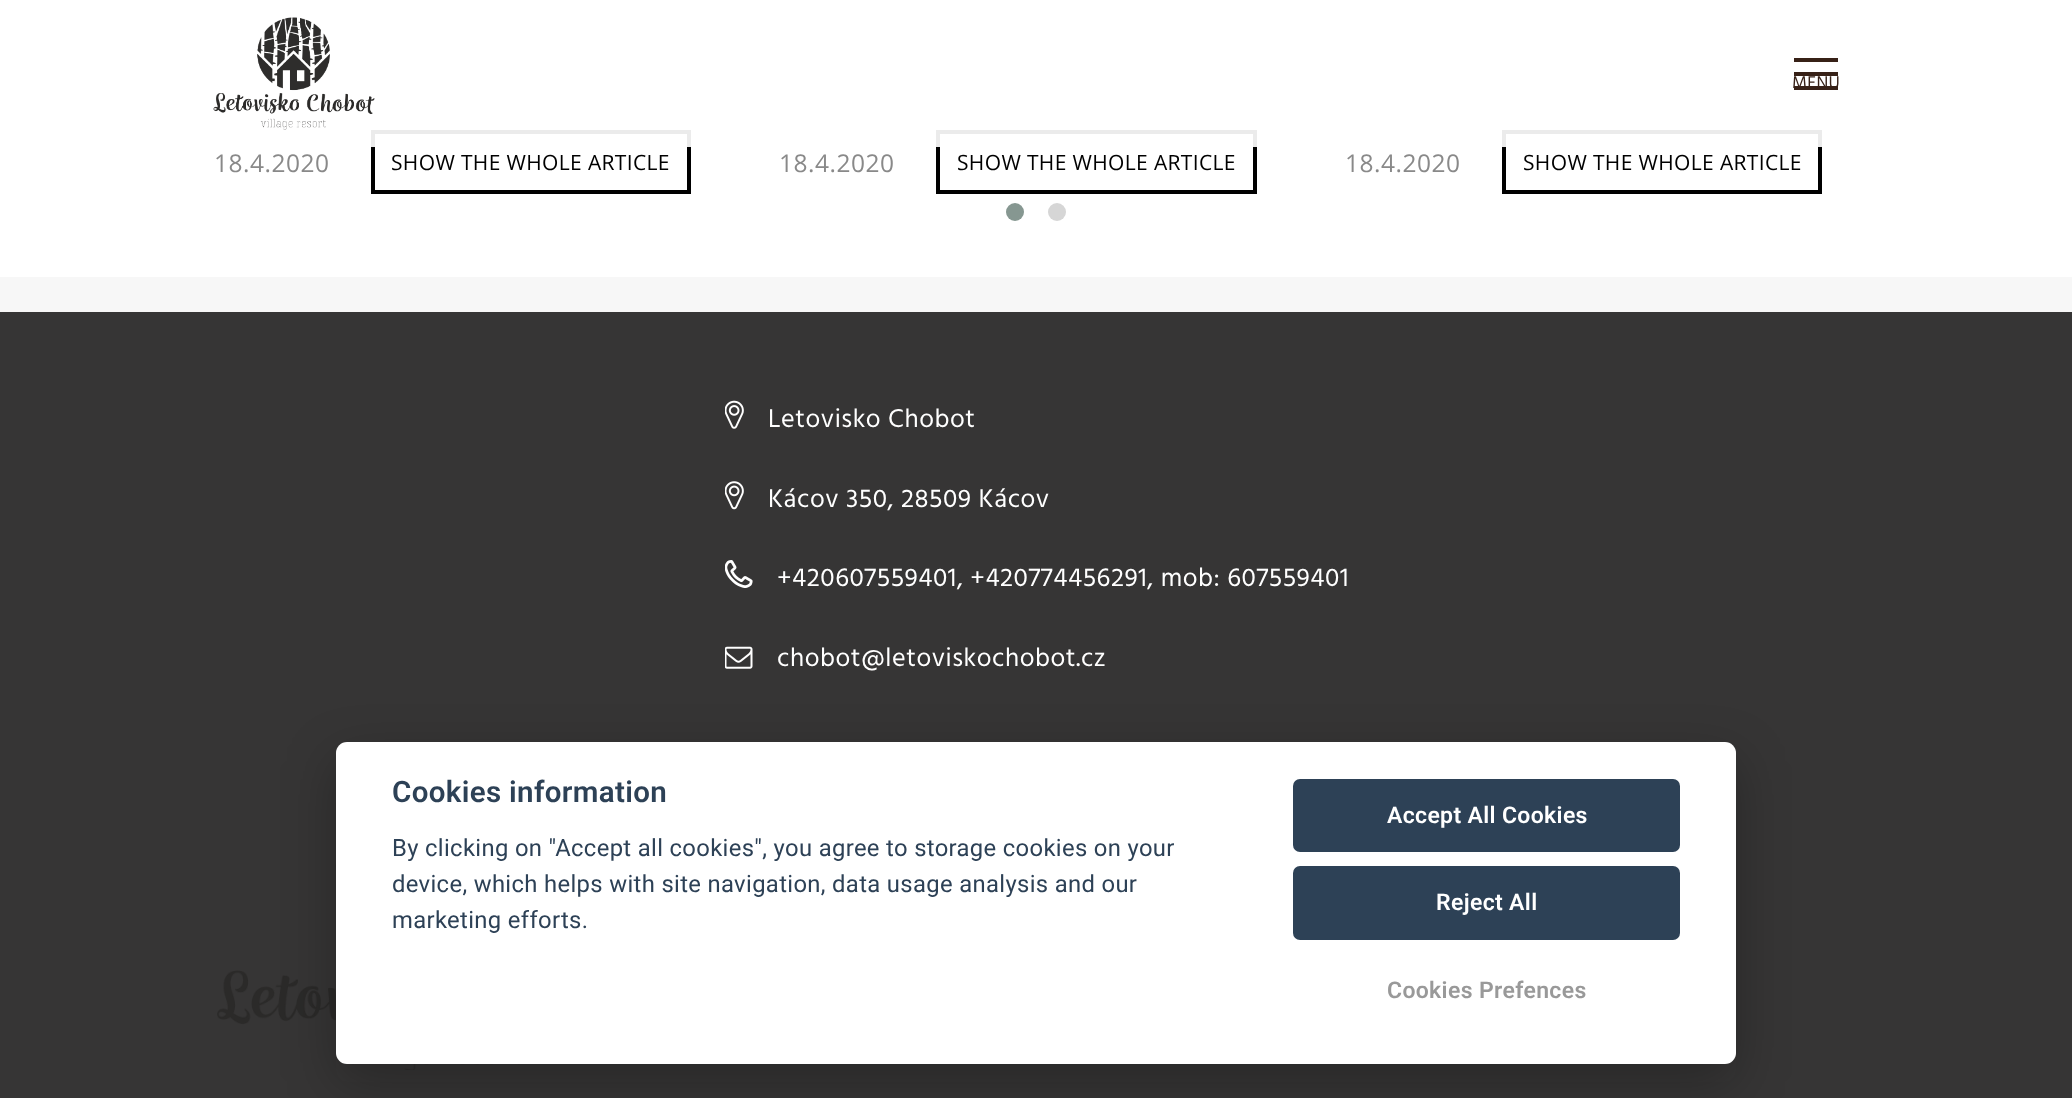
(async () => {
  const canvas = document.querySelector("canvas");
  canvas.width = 2072;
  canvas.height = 1098;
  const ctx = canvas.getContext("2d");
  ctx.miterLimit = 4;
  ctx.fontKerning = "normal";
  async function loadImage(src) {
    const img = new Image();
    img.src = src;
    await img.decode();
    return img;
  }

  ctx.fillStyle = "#f7f7f7";
  ctx.fillRect(0, 0, 2072, 1098);
  ctx.fillStyle = "#ffffff";
  ctx.fillRect(0, 0, 2072, 277);
  ctx.strokeStyle = "#000000";
  ctx.lineWidth = 4;
  ctx.strokeRect(373, 132, 316, 60);
  ctx.strokeRect(938, 132, 317, 60);
  ctx.strokeRect(1504, 132, 316, 60);
  ctx.fillStyle = "rgba(255, 255, 255, 0.92)";
  ctx.fillRect(371, 130, 1451, 17);
  ctx.drawImage(await loadImage("img/1.png"), 213, 17, 162, 113);
  for (const [x, y, w, h, color] of [
    [1794, 72, 44, 4, "#372117"],
    [1794, 58, 44, 4, "#372117"],
    [1794, 86, 44, 4, "#372117"],
  ]) {
    ctx.fillStyle = color;
    ctx.fillRect(x, y, w, h);
  }
  ctx.fillStyle = "#869791";
  ctx.beginPath();
  ctx.arc(1015, 212, 9, 0, Math.PI * 2);
  ctx.fill();
  ctx.fillStyle = "#d6d6d6";
  ctx.beginPath();
  ctx.arc(1057, 212, 9, 0, Math.PI * 2);
  ctx.fill();
  ctx.fillStyle = "#363535";
  ctx.fillRect(0, 312, 2072, 786);
  ctx.drawImage(await loadImage("img/2.png"), 725, 400, 19, 29);
  ctx.drawImage(await loadImage("img/3.png"), 725, 481, 19, 29);
  ctx.drawImage(await loadImage("img/4.png"), 725, 560, 28, 28);
  ctx.drawImage(await loadImage("img/5.png"), 725, 646, 28, 23);
  ctx.drawImage(await loadImage("img/6.png"), 217, 863, 303, 207);
  ctx.fillStyle = "rgba(2, 2, 3, 0.28)";
  ctx.filter = "blur(26px)";
  ctx.beginPath();
  ctx.roundRect(336, 760, 1400, 322, 11);
  ctx.fill();
  ctx.filter = "none";
  ctx.fillStyle = "#ffffff";
  ctx.beginPath();
  ctx.roundRect(336, 742, 1400, 322, 11);
  ctx.fill();
  ctx.fillStyle = "#2d4156";
  ctx.beginPath();
  ctx.roundRect(1293, 779, 387, 73, 7);
  ctx.fill();
  ctx.beginPath();
  ctx.roundRect(1293, 866, 387, 74, 7);
  ctx.fill();
  ctx.letterSpacing = "0.35px";
  ctx.font = "17.5px Hind";
  ctx.fillStyle = "#372117";
  ctx.fillText("MENU", 1792, 88);
  ctx.letterSpacing = "0.5px";
  ctx.font = "24.5px Open Sans";
  ctx.fillStyle = "#898989";
  ctx.fillText("18.4.2020", 214, 172);
  ctx.letterSpacing = "0.35px";
  ctx.font = "21px Open Sans";
  ctx.fillStyle = "#000000";
  ctx.fillText("SHOW THE WHOLE ARTICLE", 391, 170);
  ctx.letterSpacing = "0.5px";
  ctx.font = "24.5px Open Sans";
  ctx.fillStyle = "#898989";
  ctx.fillText("18.4.2020", 779, 172);
  ctx.letterSpacing = "0.35px";
  ctx.font = "21px Open Sans";
  ctx.fillStyle = "#000000";
  ctx.fillText("SHOW THE WHOLE ARTICLE", 957, 170);
  ctx.letterSpacing = "0.5px";
  ctx.font = "24.5px Open Sans";
  ctx.fillStyle = "#898989";
  ctx.fillText("18.4.2020", 1345, 172);
  ctx.letterSpacing = "0.35px";
  ctx.font = "21px Open Sans";
  ctx.fillStyle = "#000000";
  ctx.fillText("SHOW THE WHOLE ARTICLE", 1523, 170);
  ctx.letterSpacing = "0.55px";
  ctx.font = "26.25px Hind";
  ctx.fillStyle = "#ffffff";
  for (const [text, x, y] of [
    ["Letovisko Chobot", 768, 427],
    ["Kácov 350, 28509 Kácov", 768, 507],
    ["+420607559401, +420774456291, mob: 607559401", 777, 586],
    ["chobot@letoviskochobot.cz", 777, 666],
  ]) {
    ctx.fillText(text, x, y);
  }
  ctx.letterSpacing = "0.35px";
  ctx.font = "600 29.5px Roboto";
  ctx.fillStyle = "#2d4156";
  ctx.fillText("Cookies information", 392, 802);
  ctx.font = "23.8px Roboto";
  for (const [text, x, y] of [
    ["By clicking on \"Accept all cookies\", you agree to storage cookies on your", 392, 856],
    ["device, which helps with site navigation, data usage analysis and our", 392, 892],
    ["marketing efforts.", 392, 928],
  ]) {
    ctx.fillText(text, x, y);
  }
  ctx.font = "600 23px Roboto";
  ctx.fillStyle = "#ffffff";
  ctx.fillText("Accept All Cookies", 1387, 823);
  ctx.fillText("Reject All", 1436, 910);
  ctx.fillStyle = "#999999";
  ctx.fillText("Cookies Prefences", 1387, 998);
})();
